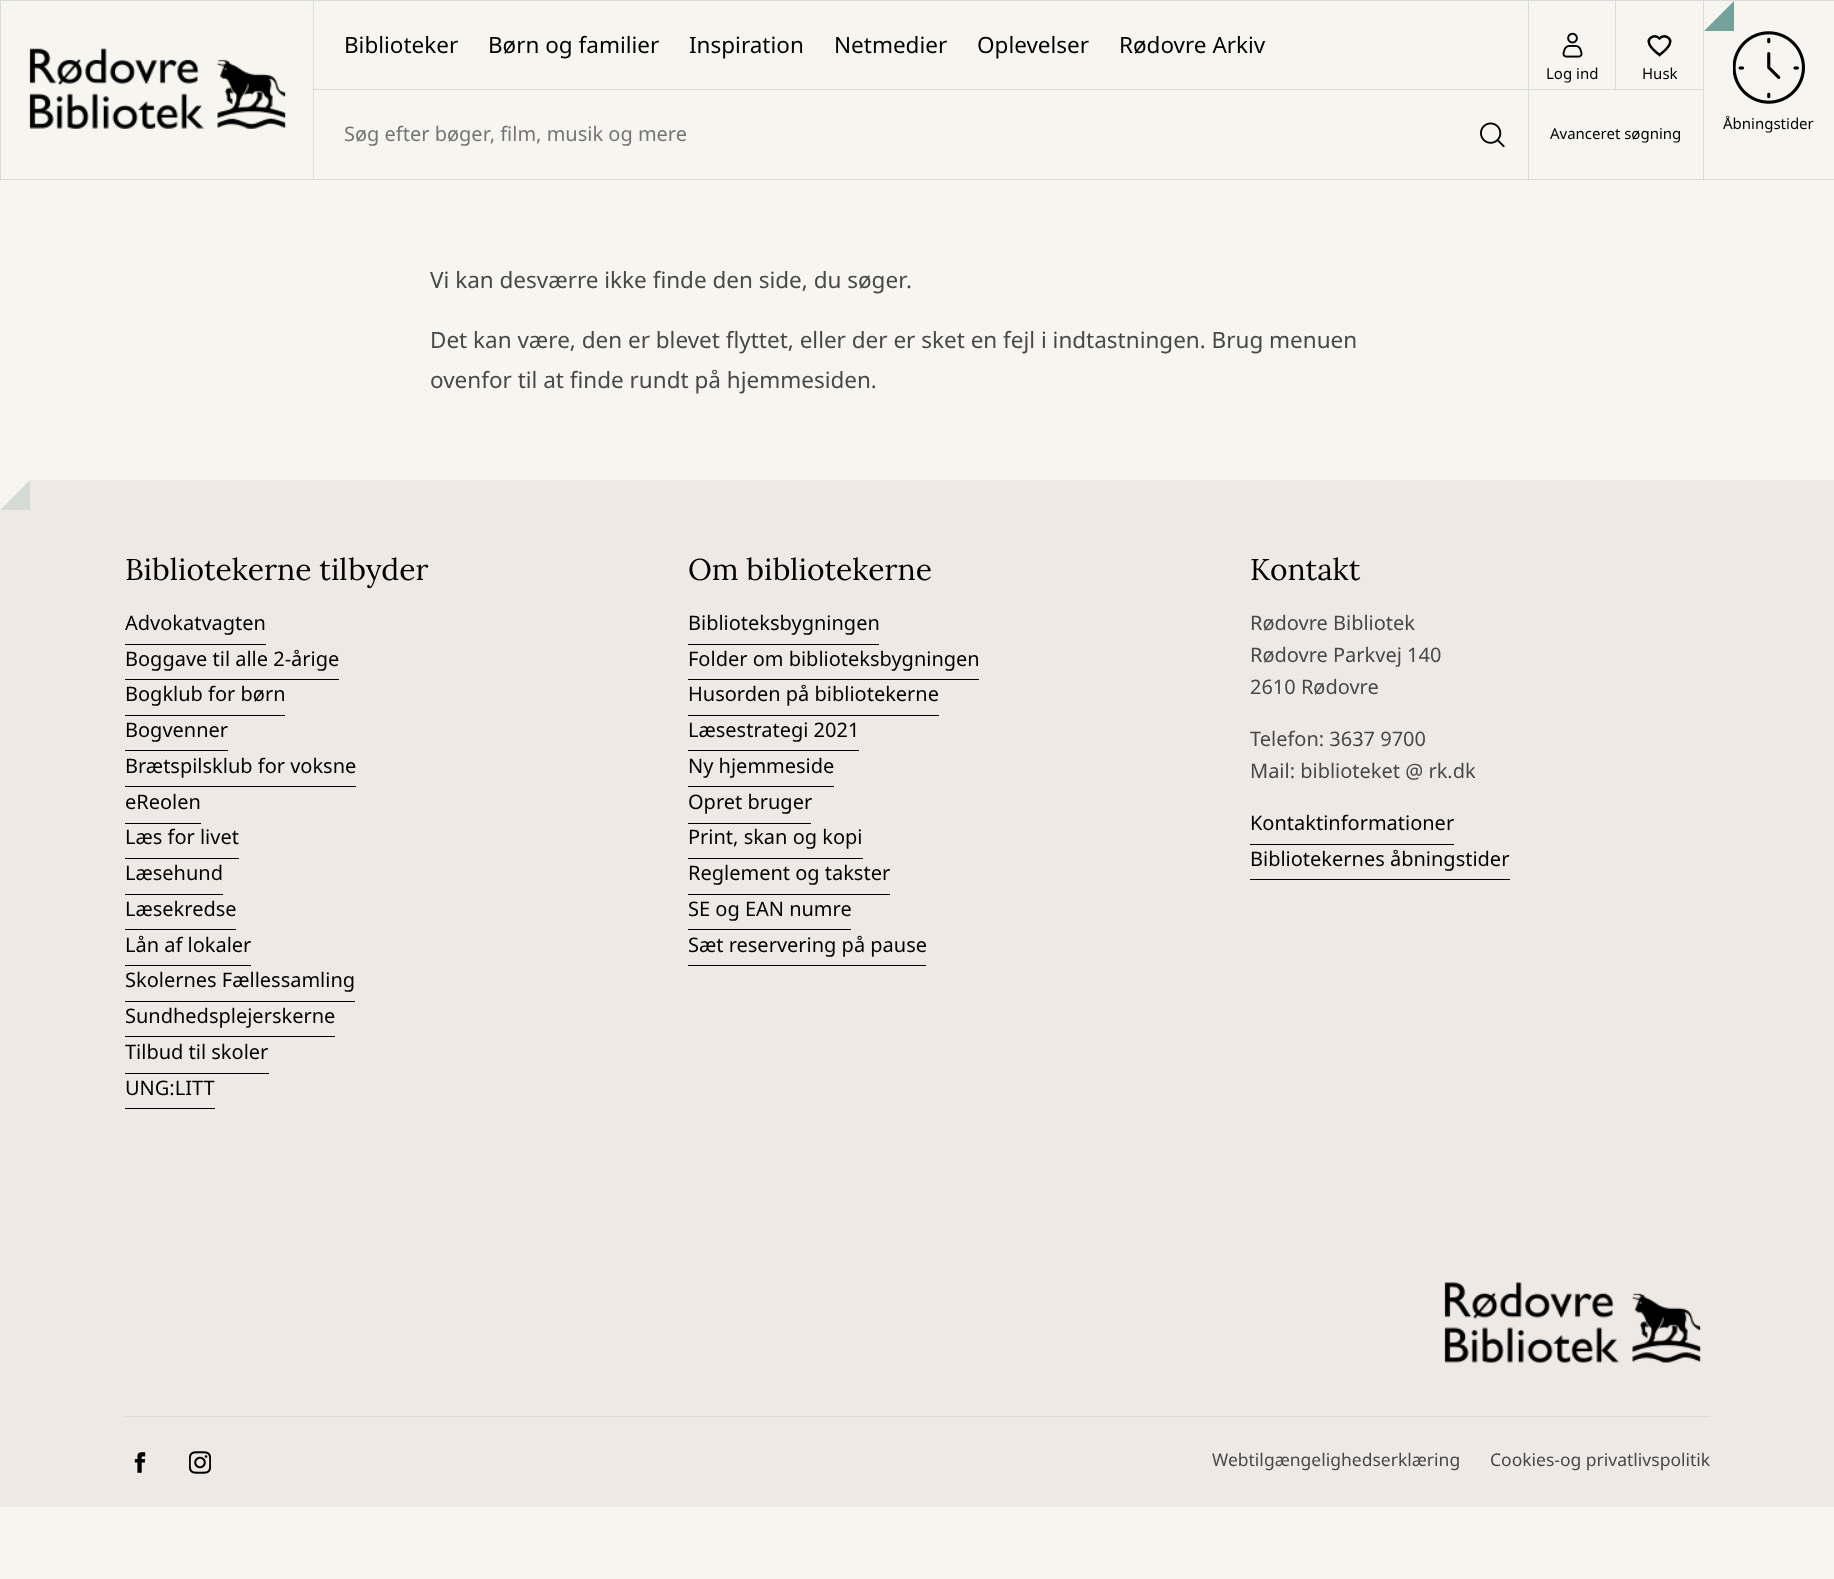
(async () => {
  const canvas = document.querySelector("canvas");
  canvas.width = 1834;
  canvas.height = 1579;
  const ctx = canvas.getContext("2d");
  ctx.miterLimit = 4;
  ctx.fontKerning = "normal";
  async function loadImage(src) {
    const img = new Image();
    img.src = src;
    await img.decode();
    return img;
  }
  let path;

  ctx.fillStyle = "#f6f5f0";
  ctx.fillRect(0, 0, 1834, 1579);
  ctx.strokeStyle = "#dbdbdb";
  ctx.strokeRect(0.5, 0.5, 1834, 179);
  ctx.fillStyle = "#dbdbdb";
  ctx.fillRect(313, 1, 1, 178);
  ctx.drawImage(await loadImage("img/1.png"), 29, 48, 258, 81);
  ctx.fillRect(314, 89, 1389, 1);
  ctx.fillRect(1528, 1, 1, 88);
  ctx.drawImage(await loadImage("img/2.png"), 1562, 32, 21, 26);
  ctx.fillRect(1615, 1, 1, 88);
  path = new Path2D("M1659.5 55C1656 52 1651.5 49 1649.5 44.5C1646.5 38 1655 33.5 1659.5 38.5C1664 33.5 1672.5 38 1669.5 44.5C1667.5 49 1663 52 1659.5 55Z");
  ctx.strokeStyle = "#000000";
  ctx.lineWidth = 2.5;
  ctx.stroke(path);
  ctx.drawImage(await loadImage("img/3.png"), 1480, 122, 25, 26);
  ctx.fillRect(1528, 90, 1, 89);
  ctx.fillRect(1703, 1, 1, 178);
  ctx.fillStyle = "#72a29a";
  path = new Path2D("M1734 1V31H1704Z");
  ctx.fill(path);
  ctx.drawImage(await loadImage("img/4.png"), 1733, 31, 72, 73);
  ctx.fillStyle = "#eee9e5";
  path = new Path2D("M30 480L0 510V1507H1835V480Z");
  ctx.fill(path);
  ctx.fillStyle = "rgba(114, 162, 154, 0.2)";
  path = new Path2D("M30 480V510H0Z");
  ctx.fill(path);
  for (const [x, y, w, h, color] of [
    [125, 644, 141, 1, "#000000"],
    [125, 679, 214, 1, "#000000"],
    [125, 715, 160, 1, "#000000"],
    [125, 750, 103, 1, "#000000"],
    [125, 786, 231, 1, "#000000"],
    [125, 823, 76, 1, "#000000"],
    [125, 858, 114, 1, "#000000"],
    [125, 894, 98, 1, "#000000"],
    [125, 929, 111, 1, "#000000"],
    [125, 965, 126, 1, "#000000"],
    [125, 1001, 230, 1, "#000000"],
    [125, 1036, 210, 1, "#000000"],
    [125, 1073, 144, 1, "#000000"],
    [125, 1108, 90, 1, "#000000"],
    [688, 644, 191, 1, "#000000"],
    [688, 679, 291, 1, "#000000"],
    [688, 715, 251, 1, "#000000"],
    [688, 750, 171, 1, "#000000"],
    [688, 786, 146, 1, "#000000"],
    [688, 823, 123, 1, "#000000"],
    [688, 858, 175, 1, "#000000"],
    [688, 894, 202, 1, "#000000"],
    [688, 929, 163, 1, "#000000"],
    [688, 965, 238, 1, "#000000"],
    [1250, 844, 204, 1, "#000000"],
    [1250, 879, 260, 1, "#000000"],
  ]) {
    ctx.fillStyle = color;
    ctx.fillRect(x, y, w, h);
  }
  ctx.drawImage(await loadImage("img/5.png"), 1444, 1282, 258, 81);
  ctx.fillStyle = "#dbdbdb";
  ctx.fillRect(125, 1416, 1585, 1);
  ctx.drawImage(await loadImage("img/6.png"), 134, 1452, 12, 21);
  ctx.drawImage(await loadImage("img/7.png"), 189, 1451, 22, 23);
  ctx.font = "22.5px Noto Sans";
  ctx.fillStyle = "#000000";
  for (const [text, x, y] of [
    ["Biblioteker", 344, 53],
    ["Børn og familier", 488, 53],
    ["Inspiration", 689, 53],
    ["Netmedier", 834, 53],
    ["Oplevelser", 977, 53],
    ["Rødovre Arkiv", 1119, 53],
  ]) {
    ctx.fillText(text, x, y);
  }
  ctx.font = "15px Noto Sans";
  ctx.fillText("Log ind", 1546, 79);
  ctx.fillText("Husk", 1642, 79);
  ctx.font = "20px Noto Sans";
  ctx.fillStyle = "#757575";
  ctx.fillText("Søg efter bøger, film, musik og mere", 344, 141);
  ctx.font = "15px Noto Sans";
  ctx.fillStyle = "#000000";
  ctx.fillText("Avanceret søgning", 1550, 139);
  ctx.fillText("Åbningstider", 1723, 129);
  ctx.font = "22.5px Noto Sans";
  ctx.fillStyle = "#484848";
  for (const [text, x, y] of [
    ["Vi kan desværre ikke finde den side, du søger.", 430, 288],
    ["Det kan være, den er blevet flyttet, eller der er sket en fejl i indtastningen. Brug menuen", 430, 348],
    ["ovenfor til at finde rundt på hjemmesiden.", 430, 388],
  ]) {
    ctx.fillText(text, x, y);
  }
  ctx.font = "30px Lora";
  ctx.fillStyle = "#000000";
  ctx.fillText("Bibliotekerne tilbyder", 125, 580);
  ctx.font = "20px Noto Sans";
  for (const [text, x, y] of [
    ["Advokatvagten", 125, 630],
    ["Boggave til alle 2-årige", 125, 666],
    ["Bogklub for børn", 125, 701],
    ["Bogvenner", 125, 737],
    ["Brætspilsklub for voksne", 125, 773],
    ["eReolen", 125, 809],
    ["Læs for livet", 125, 844],
    ["Læsehund", 125, 880],
    ["Læsekredse", 125, 916],
    ["Lån af lokaler", 125, 952],
    ["Skolernes Fællessamling", 125, 987],
    ["Sundhedsplejerskerne", 125, 1023],
    ["Tilbud til skoler", 125, 1059],
    ["UNG:LITT", 125, 1095],
  ]) {
    ctx.fillText(text, x, y);
  }
  ctx.font = "30px Lora";
  ctx.fillText("Om bibliotekerne", 688, 580);
  ctx.font = "20px Noto Sans";
  for (const [text, x, y] of [
    ["Biblioteksbygningen", 688, 630],
    ["Folder om biblioteksbygningen", 688, 666],
    ["Husorden på bibliotekerne", 688, 701],
    ["Læsestrategi 2021", 688, 737],
    ["Ny hjemmeside", 688, 773],
    ["Opret bruger", 688, 809],
    ["Print, skan og kopi", 688, 844],
    ["Reglement og takster", 688, 880],
    ["SE og EAN numre", 688, 916],
    ["Sæt reservering på pause", 688, 952],
  ]) {
    ctx.fillText(text, x, y);
  }
  ctx.font = "30px Lora";
  ctx.fillText("Kontakt", 1250, 580);
  ctx.font = "20px Noto Sans";
  ctx.fillStyle = "#484848";
  for (const [text, x, y] of [
    ["Rødovre Bibliotek", 1250, 630],
    ["Rødovre Parkvej 140", 1250, 662],
    ["2610 Rødovre", 1250, 694],
    ["Telefon: 3637 9700", 1250, 746],
    ["Mail: biblioteket @ rk.dk", 1250, 778],
  ]) {
    ctx.fillText(text, x, y);
  }
  ctx.fillStyle = "#000000";
  ctx.fillText("Kontaktinformationer", 1250, 830);
  ctx.fillText("Bibliotekernes åbningstider", 1250, 866);
  ctx.font = "17.5px Noto Sans";
  ctx.fillStyle = "#484848";
  ctx.fillText("Webtilgængelighedserklæring", 1212, 1466);
  ctx.fillText("Cookies-og privatlivspolitik", 1490, 1466);
})();
